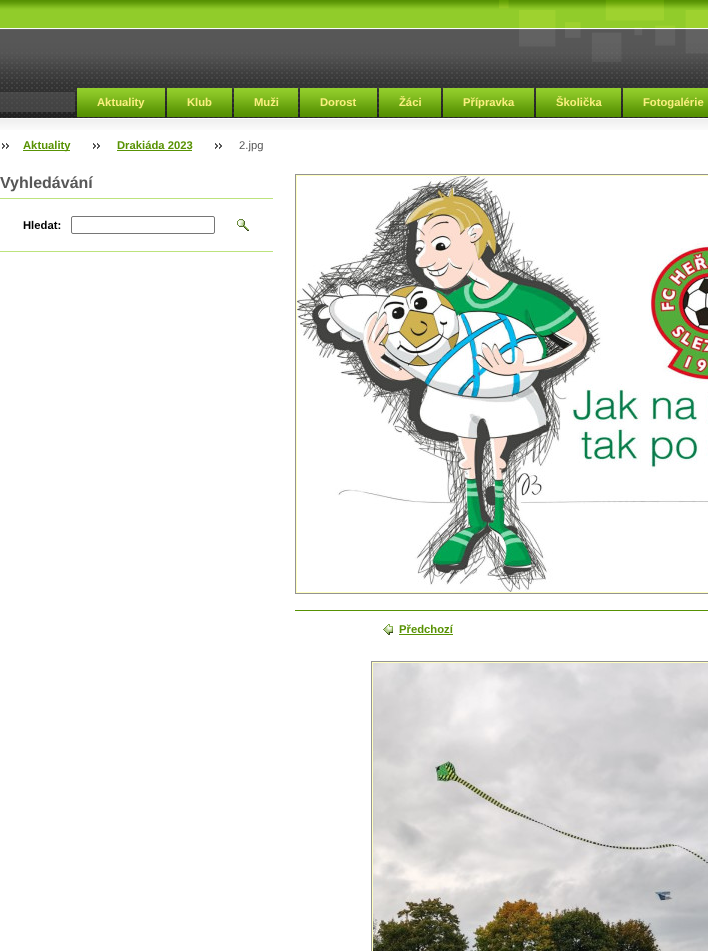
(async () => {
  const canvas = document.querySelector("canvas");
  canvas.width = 708;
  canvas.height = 951;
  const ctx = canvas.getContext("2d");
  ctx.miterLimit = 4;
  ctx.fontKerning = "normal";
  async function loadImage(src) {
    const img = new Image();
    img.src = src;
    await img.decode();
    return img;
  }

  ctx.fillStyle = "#ffffff";
  ctx.fillRect(0, 0, 708, 951);
  ctx.drawImage(await loadImage("img/1.png"), 0, 0, 708, 118);
  ctx.drawImage(await loadImage("img/10.png"), 0, 118, 708, 12);
  ctx.drawImage(await loadImage("img/2.png"), 75, 82, 633, 37);
  ctx.drawImage(await loadImage("img/3.png"), 77, 88, 88, 29);
  ctx.drawImage(await loadImage("img/4.png"), 167, 88, 65, 29);
  ctx.drawImage(await loadImage("img/5.png"), 234, 88, 64, 29);
  ctx.drawImage(await loadImage("img/6.png"), 300, 88, 77, 29);
  ctx.drawImage(await loadImage("img/7.png"), 379, 88, 62, 29);
  ctx.drawImage(await loadImage("img/8.png"), 443, 88, 91, 29);
  ctx.drawImage(await loadImage("img/9.png"), 536, 88, 85, 29);
  ctx.drawImage(await loadImage("img/9.png"), 623, 88, 85, 29);
  ctx.drawImage(await loadImage("img/11.png"), 2, 143, 7, 6);
  ctx.fillStyle = "#589203";
  ctx.fillRect(23, 150, 47, 1);
  ctx.drawImage(await loadImage("img/11.png"), 93, 143, 7, 6);
  ctx.fillRect(117, 150, 75, 1);
  ctx.drawImage(await loadImage("img/11.png"), 215, 143, 7, 6);
  ctx.fillStyle = "#bce37c";
  ctx.fillRect(0, 198, 273, 1);
  ctx.fillRect(0, 251, 273, 1);
  ctx.beginPath();
  ctx.roundRect(71.5, 216.5, 143, 17, 1.5);
  ctx.strokeStyle = "#767676";
  ctx.stroke();
  ctx.drawImage(await loadImage("img/12.png"), 237, 219, 12, 12);
  ctx.strokeStyle = "#939393";
  ctx.strokeRect(295.5, 174.5, 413, 419);
  ctx.strokeStyle = "#ffffbe";
  ctx.strokeRect(296.5, 175.5, 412, 417);
  ctx.drawImage(await loadImage("img/13.png"), 297, 176, 411, 416);
  ctx.fillStyle = "#569102";
  ctx.fillRect(295, 610, 413, 1);
  ctx.drawImage(await loadImage("img/14.png"), 383, 624, 10, 11);
  ctx.fillStyle = "#589203";
  ctx.fillRect(399, 634, 54, 1);
  ctx.strokeStyle = "#949496";
  ctx.strokeRect(371.5, 661.5, 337, 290);
  ctx.strokeStyle = "#ffffbe";
  ctx.strokeRect(372.5, 662.5, 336, 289);
  ctx.drawImage(await loadImage("img/15.png"), 373, 663, 335, 288);
  ctx.font = "bold 11.25px Liberation Sans";
  ctx.fillStyle = "#f9ef7f";
  for (const [text, x, y] of [
    ["Aktuality", 97, 106],
    ["Klub", 187, 106],
    ["Muži", 254, 106],
    ["Dorost", 320, 106],
    ["Žáci", 399, 106],
    ["Přípravka", 463, 106],
    ["Školička", 556, 106],
    ["Fotogalérie", 643, 106],
  ]) {
    ctx.fillText(text, x, y);
  }
  ctx.fillStyle = "#589203";
  ctx.fillText("Aktuality", 23, 149);
  ctx.fillText("Drakiáda 2023", 117, 149);
  ctx.font = "11.25px Liberation Sans";
  ctx.fillStyle = "#575757";
  ctx.fillText("2.jpg", 239, 149);
  ctx.font = "bold 16px Liberation Sans";
  ctx.fillText("Vyhledávání", 0, 188);
  ctx.font = "bold 11.25px Liberation Sans";
  ctx.fillStyle = "#000000";
  ctx.fillText("Hledat:", 23, 229);
  ctx.fillStyle = "#589203";
  ctx.fillText("Předchozí", 399, 633);
})();
